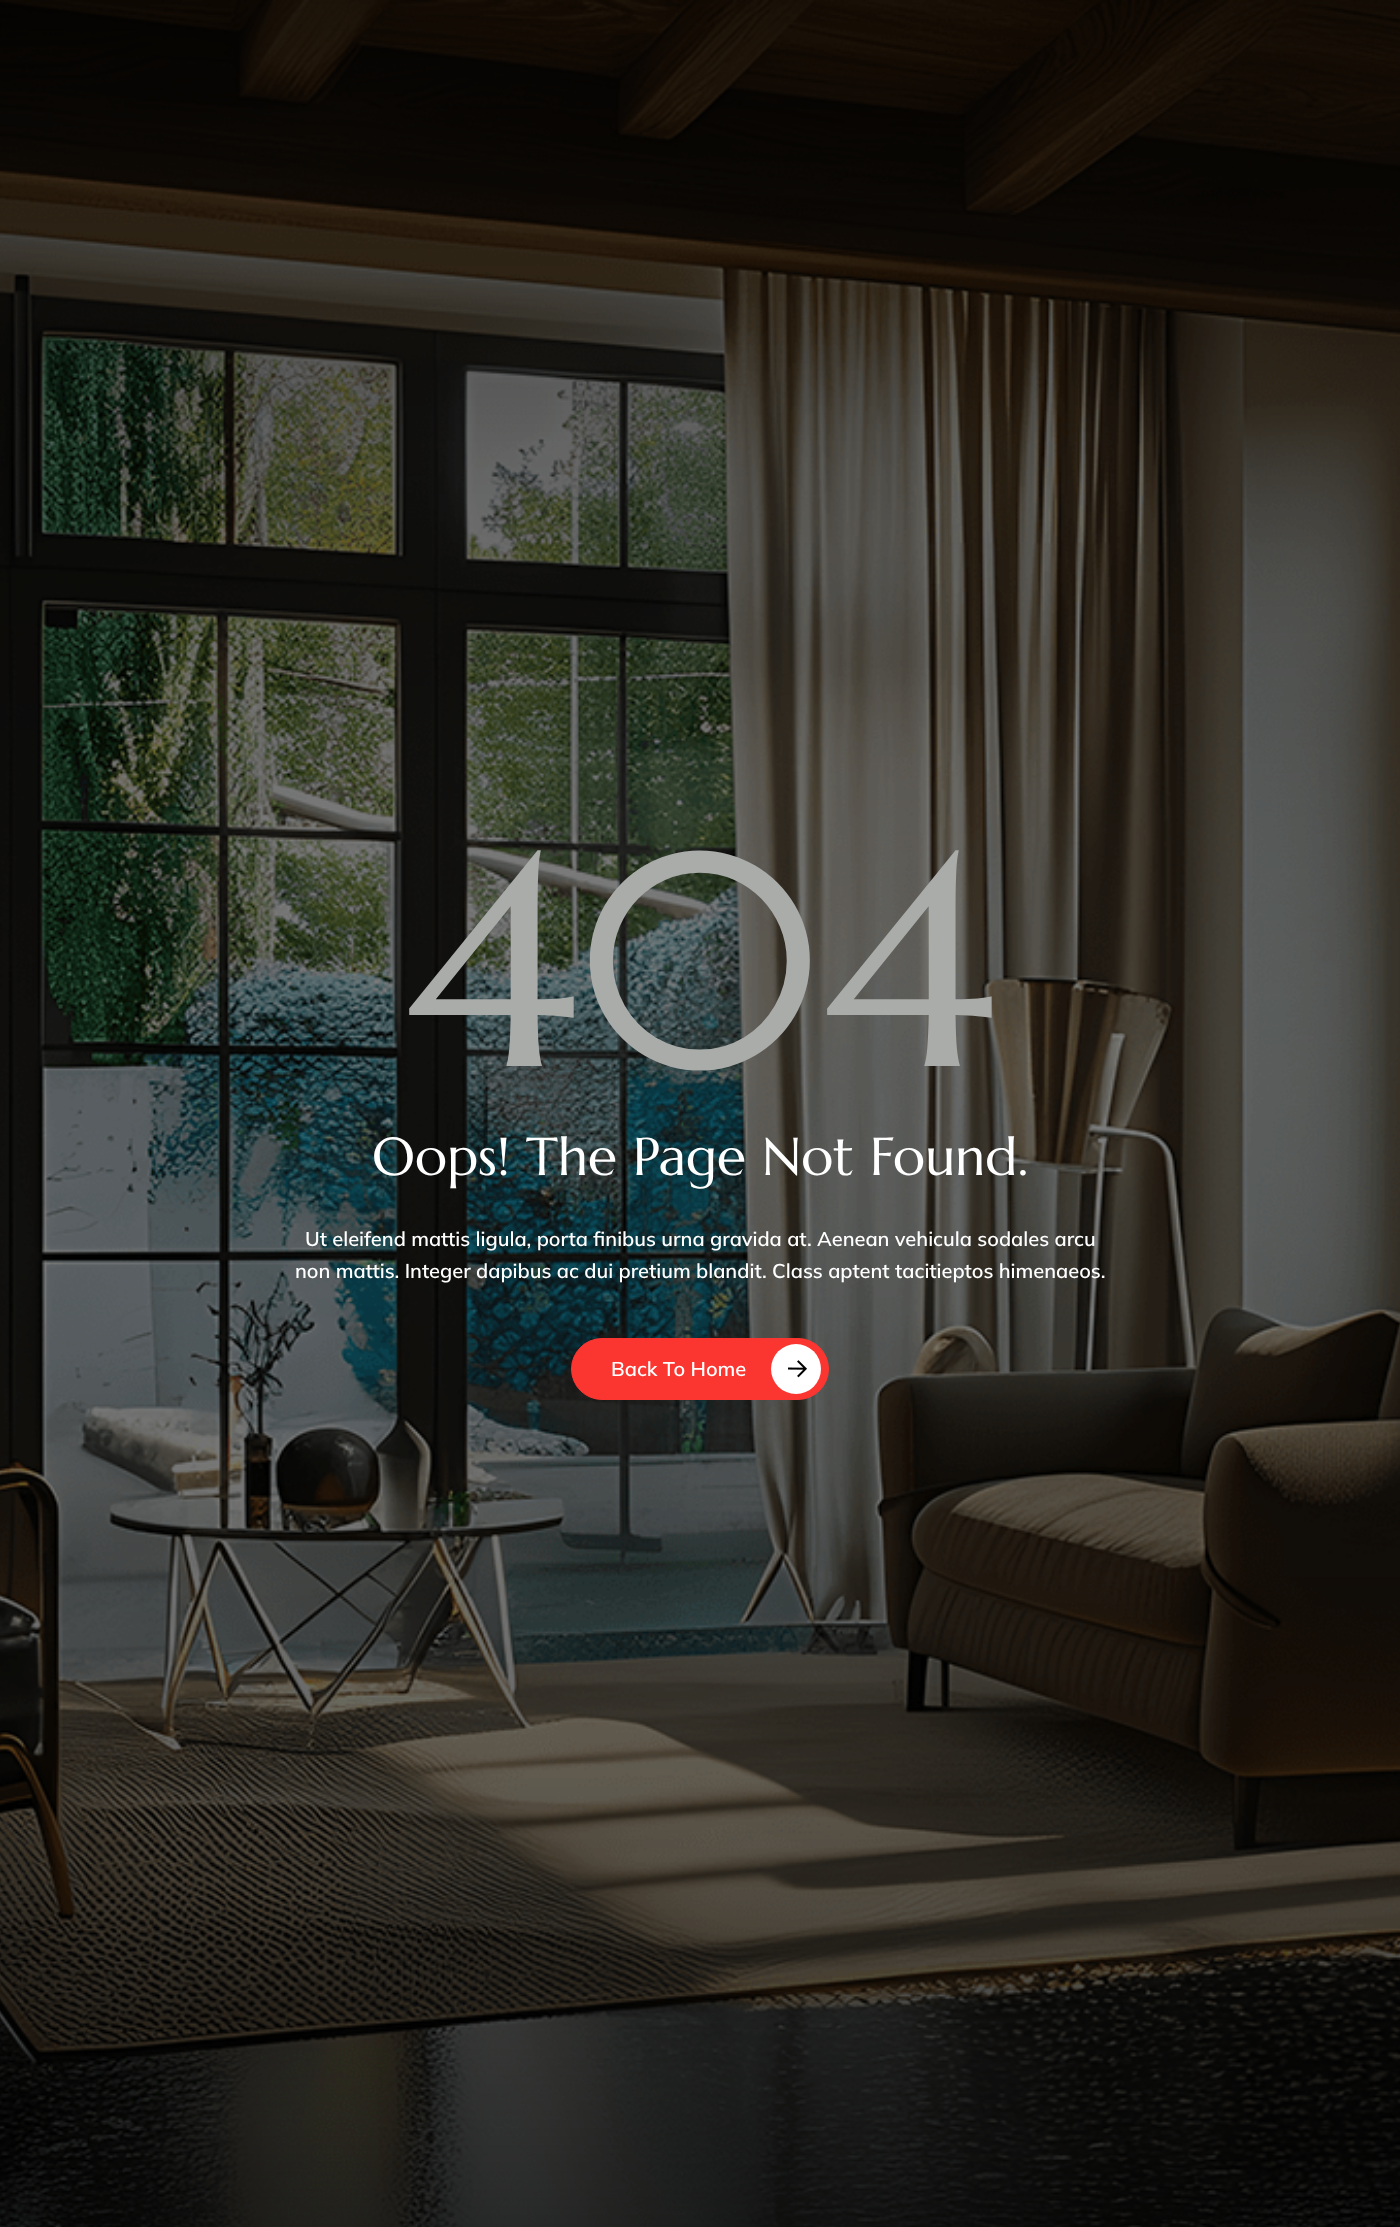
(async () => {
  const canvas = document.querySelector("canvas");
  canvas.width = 1400;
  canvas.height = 2227;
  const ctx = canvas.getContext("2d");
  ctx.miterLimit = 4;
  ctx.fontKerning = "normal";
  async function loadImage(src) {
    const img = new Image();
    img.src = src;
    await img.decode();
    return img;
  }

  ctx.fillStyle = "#ffffff";
  ctx.fillRect(0, 0, 1400, 2227);
  ctx.drawImage(await loadImage("img/1.png"), 0, 0, 1400, 2227);
  ctx.fillStyle = "#fb3631";
  ctx.beginPath();
  ctx.roundRect(571.5, 1338.5, 257, 61, 30.5);
  ctx.fill();
  ctx.strokeStyle = "#fb3631";
  ctx.stroke();
  ctx.fillStyle = "#ffffff";
  ctx.beginPath();
  ctx.arc(796, 1369, 25, 0, Math.PI * 2);
  ctx.fill();
  ctx.drawImage(await loadImage("img/2.png"), 788, 1360, 19, 18);
  ctx.font = "303px Marcellus";
  ctx.fillStyle = "#aaacaa";
  ctx.fillText("404", 404, 1066);
  ctx.font = "53.25px Marcellus";
  ctx.fillStyle = "#ffffff";
  ctx.fillText("Oops! The Page Not Found.", 372, 1175);
  ctx.font = "600 20px Mulish";
  for (const [text, x, y] of [
    ["Ut eleifend mattis ligula, porta finibus urna gravida at. Aenean vehicula sodales arcu", 305, 1246],
    ["non mattis. Integer dapibus ac dui pretium blandit. Class aptent tacitieptos himenaeos.", 295, 1278],
    ["Back To Home", 611, 1376],
  ]) {
    ctx.fillText(text, x, y);
  }
})();
